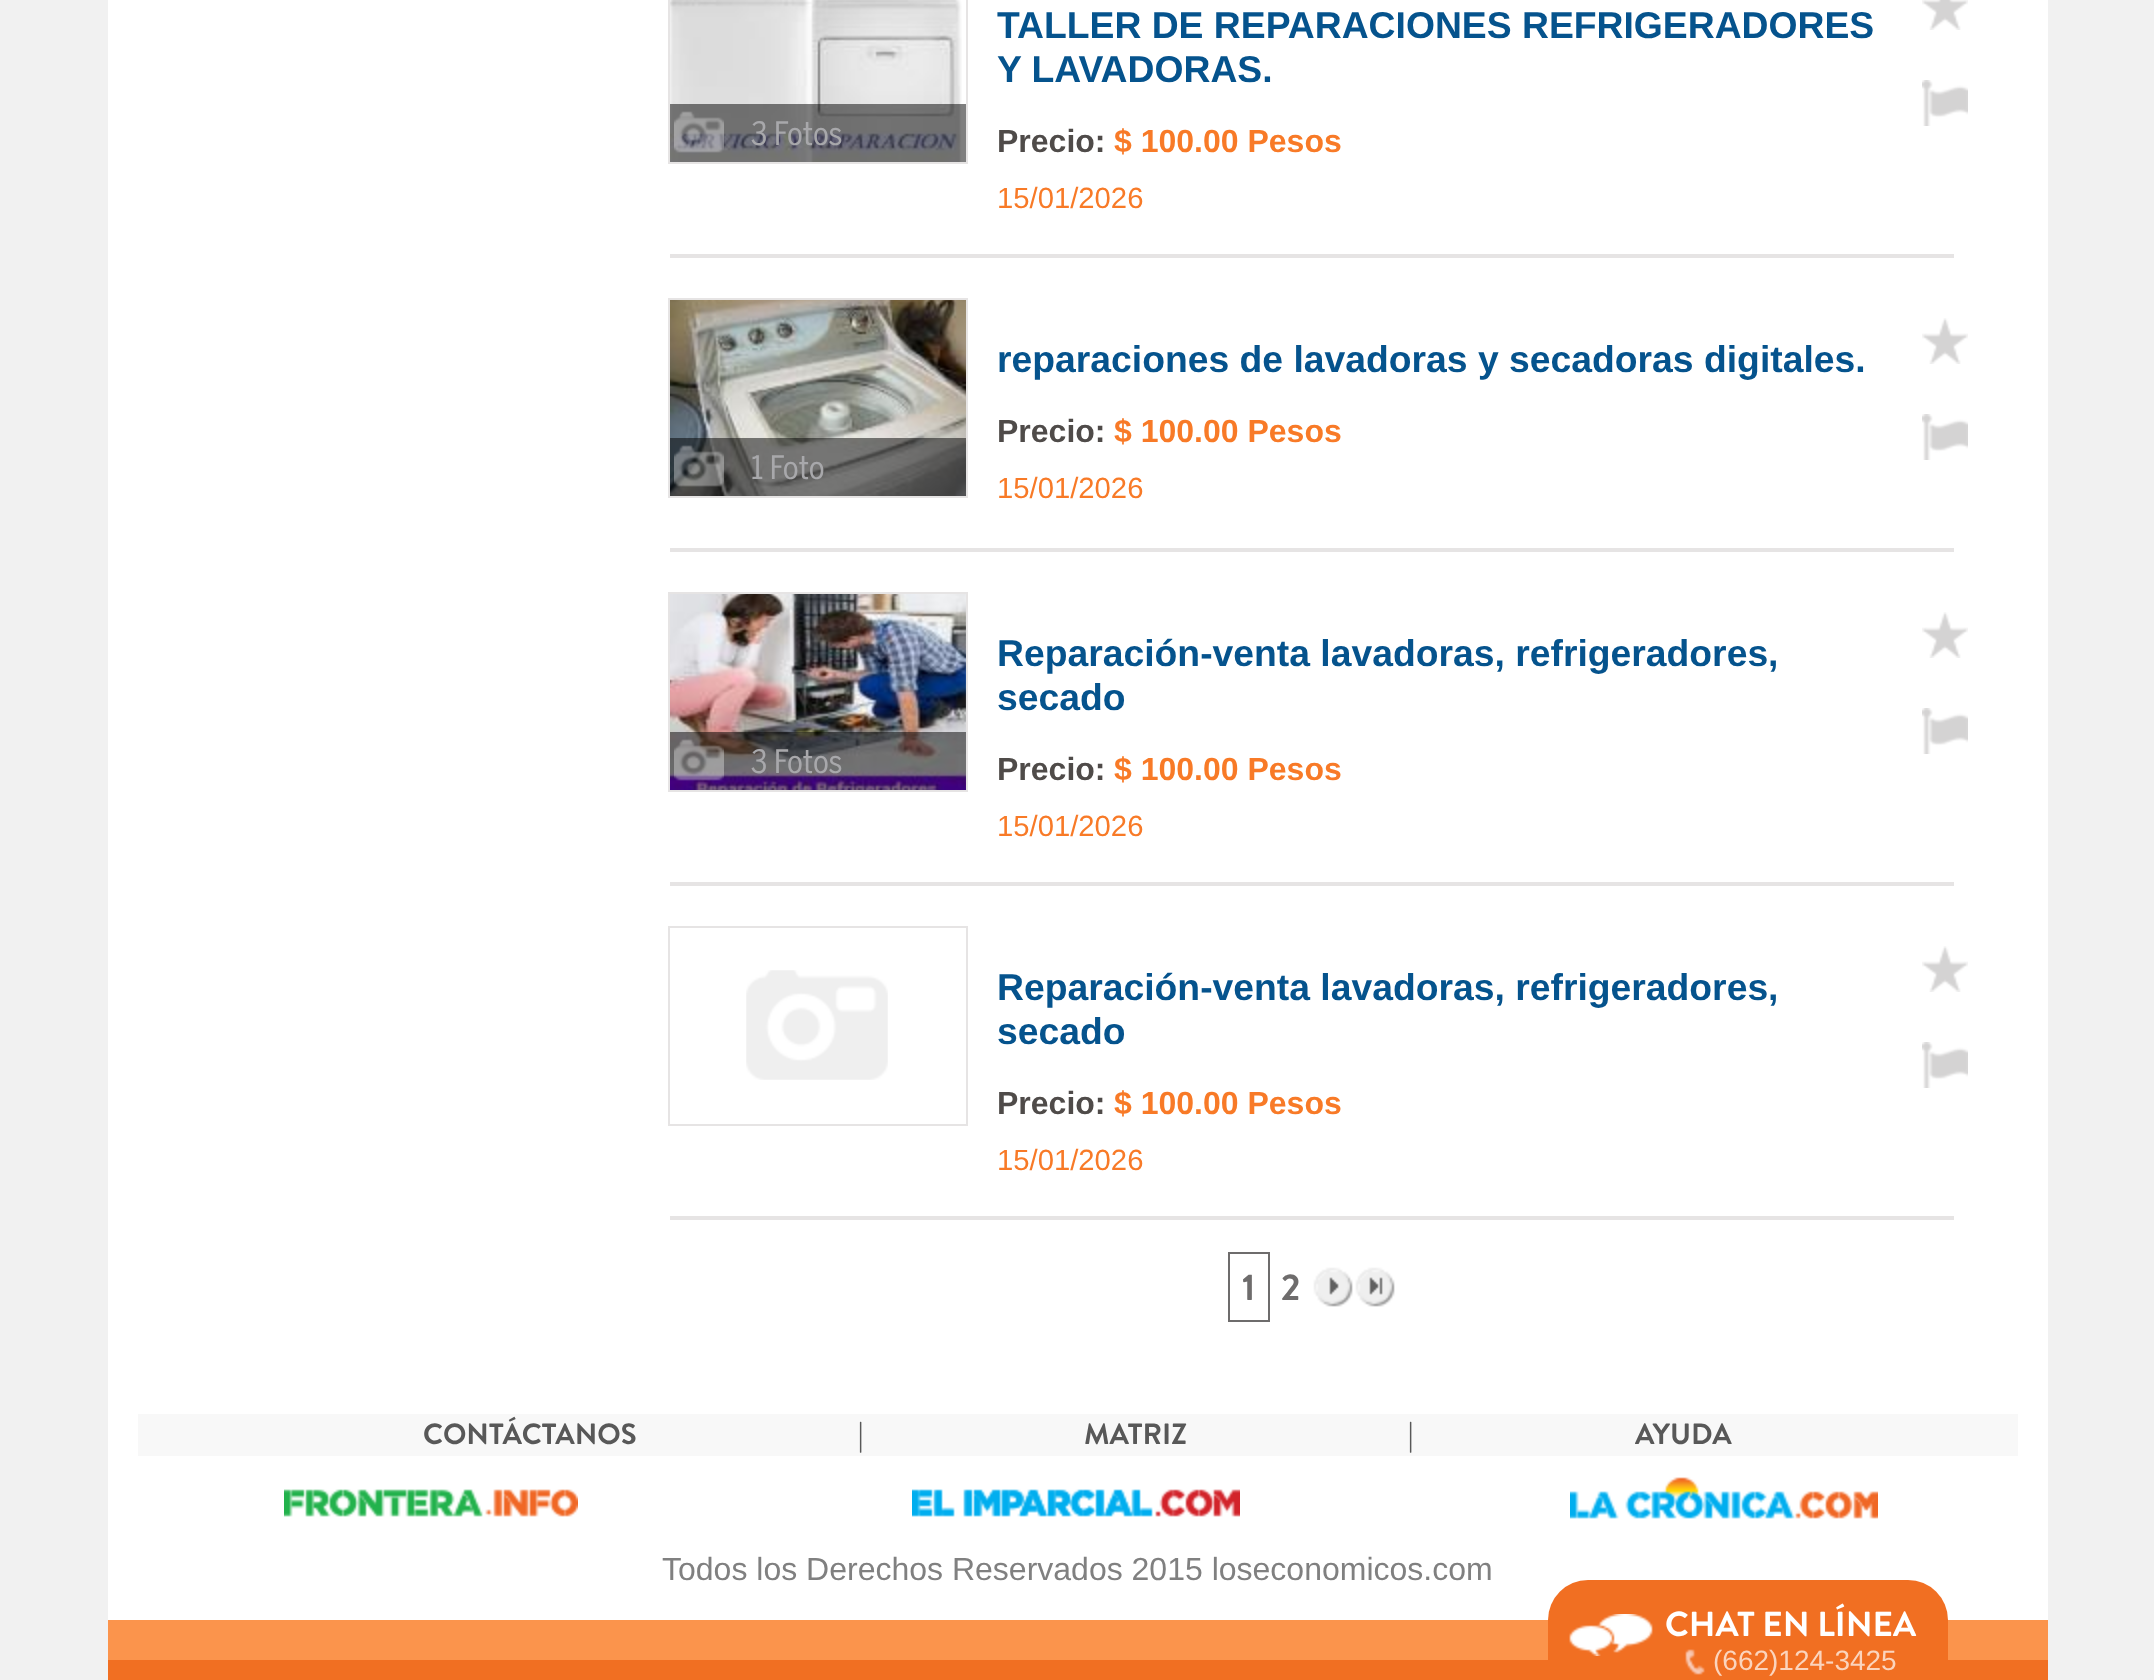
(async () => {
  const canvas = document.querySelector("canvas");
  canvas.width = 2154;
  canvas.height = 1680;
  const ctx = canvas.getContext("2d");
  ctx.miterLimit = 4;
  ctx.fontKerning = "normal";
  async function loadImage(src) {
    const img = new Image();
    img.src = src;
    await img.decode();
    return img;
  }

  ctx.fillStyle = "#f1f1f1";
  ctx.fillRect(0, 0, 2154, 1680);
  ctx.fillStyle = "#ffffff";
  ctx.fillRect(108, 0, 1940, 1620);
  ctx.drawImage(await loadImage("img/1.png"), 670, 0, 292, 162);
  ctx.strokeStyle = "#e6e4e4";
  ctx.lineWidth = 2;
  ctx.strokeRect(669, -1, 298, 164);
  ctx.fillStyle = "rgba(0, 0, 0, 0.5)";
  ctx.fillRect(670, 104, 296, 58);
  ctx.drawImage(await loadImage("img/2.png"), 674, 111, 50, 42);
  ctx.drawImage(await loadImage("img/3.png"), 1922, 0, 46, 30);
  ctx.drawImage(await loadImage("img/4.png"), 1922, 80, 46, 46);
  ctx.fillStyle = "#e6e4e4";
  ctx.fillRect(670, 254, 1284, 4);
  ctx.drawImage(await loadImage("img/5.png"), 670, 300, 296, 196);
  ctx.strokeRect(669, 299, 298, 198);
  ctx.fillStyle = "rgba(0, 0, 0, 0.5)";
  ctx.fillRect(670, 438, 296, 58);
  ctx.drawImage(await loadImage("img/6.png"), 674, 445, 50, 42);
  ctx.drawImage(await loadImage("img/7.png"), 1922, 318, 46, 46);
  ctx.drawImage(await loadImage("img/4.png"), 1922, 414, 46, 46);
  ctx.fillStyle = "#e6e4e4";
  ctx.fillRect(670, 548, 1284, 4);
  ctx.drawImage(await loadImage("img/8.png"), 670, 594, 296, 196);
  ctx.strokeRect(669, 593, 298, 198);
  ctx.fillStyle = "rgba(0, 0, 0, 0.5)";
  ctx.fillRect(670, 732, 296, 58);
  ctx.drawImage(await loadImage("img/9.png"), 674, 739, 50, 42);
  ctx.drawImage(await loadImage("img/7.png"), 1922, 612, 46, 46);
  ctx.drawImage(await loadImage("img/4.png"), 1922, 708, 46, 46);
  ctx.fillStyle = "#e6e4e4";
  ctx.fillRect(670, 882, 1284, 4);
  ctx.drawImage(await loadImage("img/10.png"), 746, 970, 142, 110);
  ctx.strokeRect(669, 927, 298, 198);
  ctx.drawImage(await loadImage("img/7.png"), 1922, 946, 46, 46);
  ctx.drawImage(await loadImage("img/4.png"), 1922, 1042, 46, 46);
  ctx.fillRect(670, 1216, 1284, 4);
  ctx.strokeStyle = "#6e6c6c";
  ctx.strokeRect(1229, 1253, 40, 68);
  ctx.drawImage(await loadImage("img/11.png"), 1313, 1267, 40, 40);
  ctx.drawImage(await loadImage("img/12.png"), 1355, 1267, 40, 40);
  ctx.fillStyle = "#f8f8f8";
  ctx.fillRect(138, 1414, 1880, 42);
  ctx.drawImage(await loadImage("img/13.png"), 284, 1489, 294, 28);
  ctx.drawImage(await loadImage("img/14.png"), 912, 1489, 328, 28);
  ctx.drawImage(await loadImage("img/15.png"), 1570, 1477, 308, 42);
  ctx.fillStyle = "#fb944c";
  ctx.fillRect(108, 1620, 1940, 40);
  ctx.fillStyle = "#f16f22";
  ctx.fillRect(108, 1660, 1940, 20);
  ctx.beginPath();
  ctx.roundRect(1548, 1580, 400, 100, [40, 40, 0, 0]);
  ctx.fill();
  ctx.drawImage(await loadImage("img/16.png"), 1569, 1614, 84, 42);
  ctx.drawImage(await loadImage("img/17.png"), 1685, 1649, 20, 26);
  ctx.font = "32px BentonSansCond";
  ctx.fillStyle = "#a8a8ab";
  ctx.fillText("3 Fotos", 751, 145);
  ctx.font = "bold 37.3px Liberation Sans";
  ctx.fillStyle = "#05538d";
  ctx.fillText("TALLER DE REPARACIONES REFRIGERADORES", 997, 38);
  ctx.fillText("Y LAVADORAS.", 997, 82);
  ctx.font = "bold 32px Liberation Sans";
  ctx.fillStyle = "#4f4b49";
  ctx.fillText("Precio:", 997, 152);
  ctx.fillStyle = "#f87a27";
  ctx.fillText("$ 100.00 Pesos", 1114, 152);
  ctx.font = "29.25px Liberation Sans";
  ctx.fillText("15/01/2026", 997, 208);
  ctx.font = "32px BentonSansCond";
  ctx.fillStyle = "#a8a8ab";
  ctx.fillText("1 Foto", 751, 479);
  ctx.font = "bold 37.3px Liberation Sans";
  ctx.fillStyle = "#05538d";
  ctx.fillText("reparaciones de lavadoras y secadoras digitales.", 997, 372);
  ctx.font = "bold 32px Liberation Sans";
  ctx.fillStyle = "#4f4b49";
  ctx.fillText("Precio:", 997, 442);
  ctx.fillStyle = "#f87a27";
  ctx.fillText("$ 100.00 Pesos", 1114, 442);
  ctx.font = "29.25px Liberation Sans";
  ctx.fillText("15/01/2026", 997, 498);
  ctx.font = "32px BentonSansCond";
  ctx.fillStyle = "#a8a8ab";
  ctx.fillText("3 Fotos", 751, 773);
  ctx.font = "bold 37.3px Liberation Sans";
  ctx.fillStyle = "#05538d";
  ctx.fillText("Reparación-venta lavadoras, refrigeradores,", 997, 666);
  ctx.fillText("secado", 997, 710);
  ctx.font = "bold 32px Liberation Sans";
  ctx.fillStyle = "#4f4b49";
  ctx.fillText("Precio:", 997, 780);
  ctx.fillStyle = "#f87a27";
  ctx.fillText("$ 100.00 Pesos", 1114, 780);
  ctx.font = "29.25px Liberation Sans";
  ctx.fillText("15/01/2026", 997, 836);
  ctx.font = "bold 37.3px Liberation Sans";
  ctx.fillStyle = "#05538d";
  ctx.fillText("Reparación-venta lavadoras, refrigeradores,", 997, 1000);
  ctx.fillText("secado", 997, 1044);
  ctx.font = "bold 32px Liberation Sans";
  ctx.fillStyle = "#4f4b49";
  ctx.fillText("Precio:", 997, 1114);
  ctx.fillStyle = "#f87a27";
  ctx.fillText("$ 100.00 Pesos", 1114, 1114);
  ctx.font = "29.25px Liberation Sans";
  ctx.fillText("15/01/2026", 997, 1170);
  ctx.font = "bold 37.3px Brandon Grotesque";
  ctx.fillStyle = "#6e6c6c";
  ctx.fillText("1", 1242, 1300);
  ctx.fillText("2", 1281, 1300);
  ctx.font = "bold 29.25px Brandon Grotesque";
  ctx.fillStyle = "#585858";
  for (const [text, x, y] of [
    ["CONTÁCTANOS", 423, 1444],
    ["|", 858, 1444],
    ["MATRIZ", 1084, 1444],
    ["|", 1408, 1444],
    ["AYUDA", 1635, 1444],
  ]) {
    ctx.fillText(text, x, y);
  }
  ctx.font = "32px Liberation Sans";
  ctx.fillStyle = "#808080";
  ctx.fillText("Todos los Derechos Reservados 2015 loseconomicos.com", 662, 1580);
  ctx.font = "bold 34.75px Brandon Grotesque";
  ctx.fillStyle = "#ffffff";
  ctx.fillText("CHAT EN LÍNEA", 1665, 1636);
  ctx.font = "28px Liberation Sans";
  ctx.fillStyle = "#fbd4bd";
  ctx.fillText("(662)124-3425", 1713, 1670);
})();
